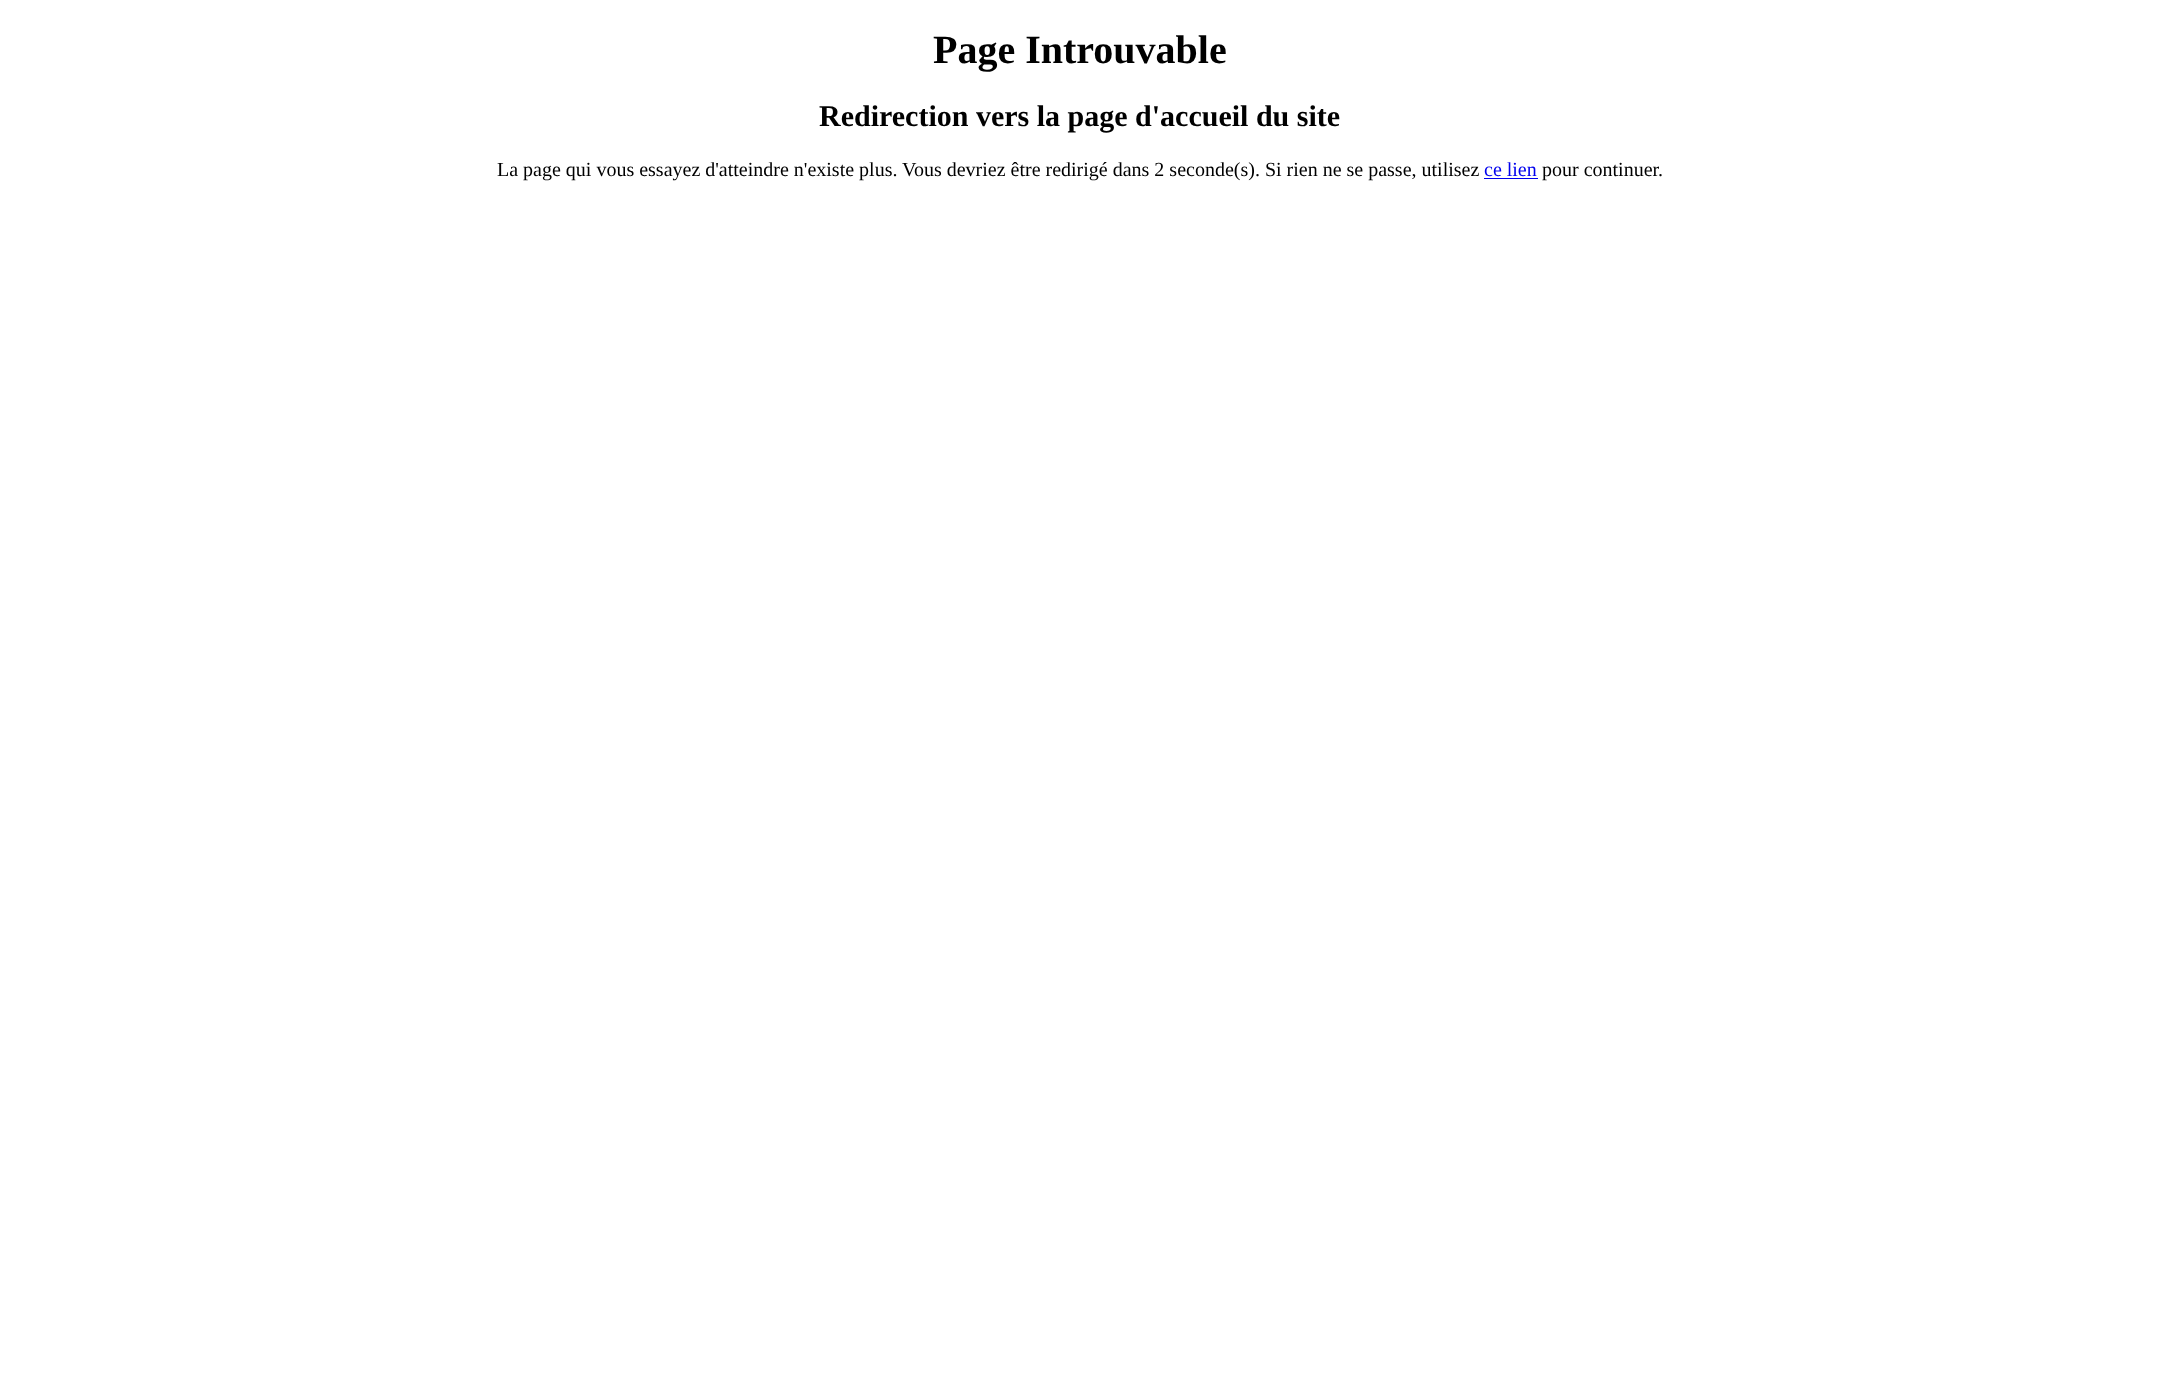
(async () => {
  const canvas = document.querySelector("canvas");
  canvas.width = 2159;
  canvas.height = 1375;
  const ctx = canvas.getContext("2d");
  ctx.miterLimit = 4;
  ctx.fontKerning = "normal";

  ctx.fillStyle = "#ffffff";
  ctx.fillRect(0, 0, 2159, 1375);
  ctx.fillStyle = "#0000ee";
  ctx.fillRect(1484, 178, 54, 1);
  ctx.font = "bold 40px Liberation Serif";
  ctx.fillStyle = "#000000";
  ctx.fillText("Page Introuvable", 933, 63);
  ctx.font = "bold 30px Liberation Serif";
  ctx.fillText("Redirection vers la page d'accueil du site", 819, 126);
  ctx.font = "20px Liberation Serif";
  ctx.fillText("La page qui vous essayez d'atteindre n'existe plus. Vous devriez être redirigé dans 2 seconde(s). Si rien ne se passe, utilisez", 497, 176);
  ctx.fillStyle = "#0000ee";
  ctx.fillText("ce lien", 1484, 176);
  ctx.fillStyle = "#000000";
  ctx.fillText("pour continuer.", 1542, 176);
})();
